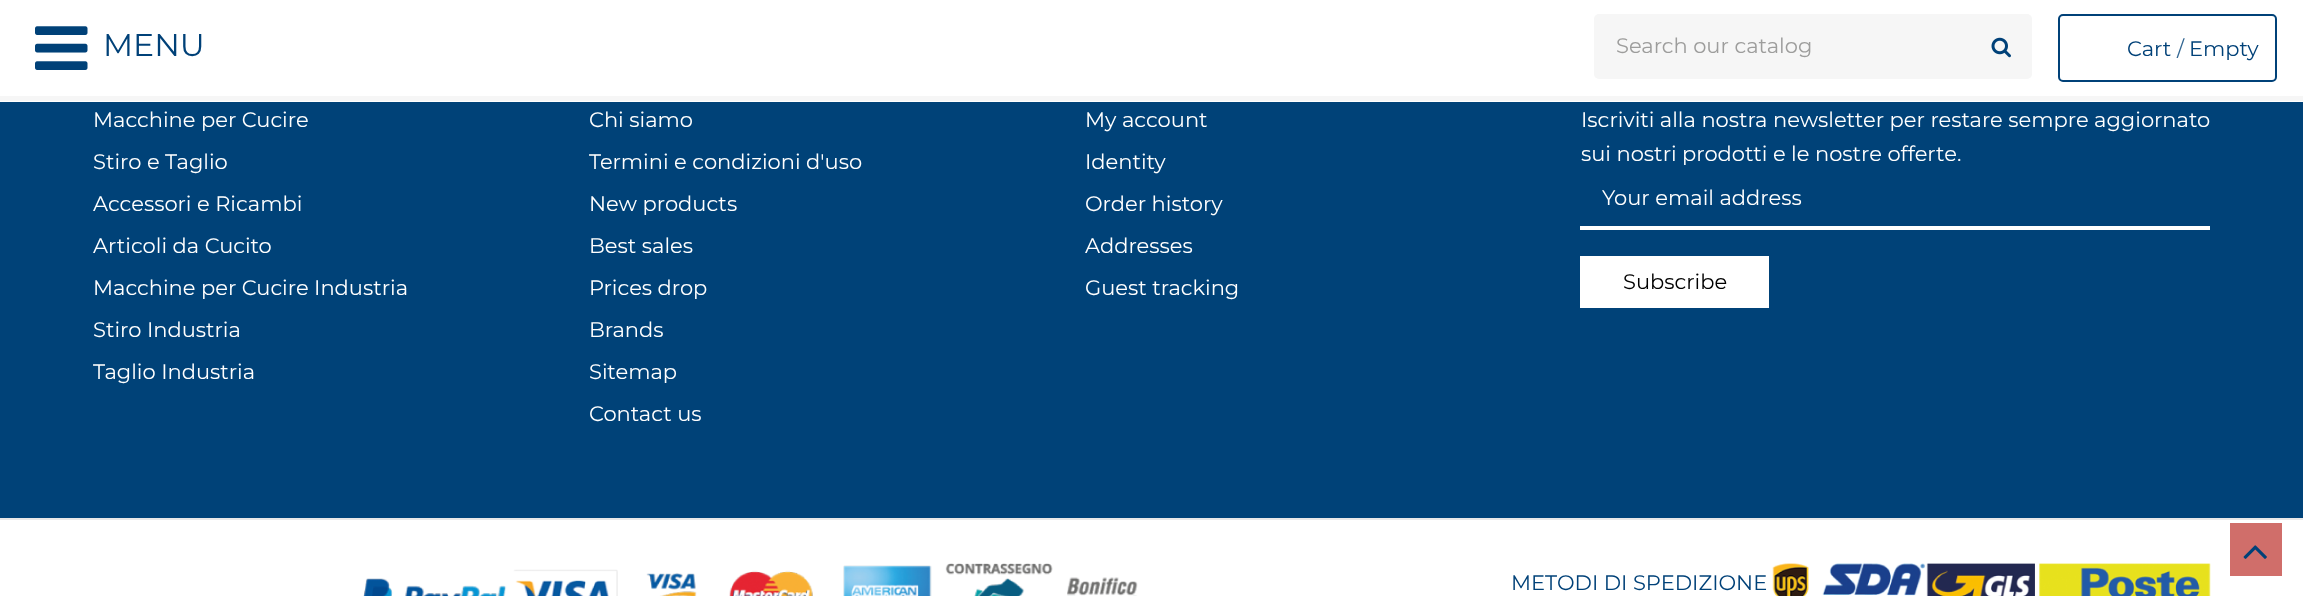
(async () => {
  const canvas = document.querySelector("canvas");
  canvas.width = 2303;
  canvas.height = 596;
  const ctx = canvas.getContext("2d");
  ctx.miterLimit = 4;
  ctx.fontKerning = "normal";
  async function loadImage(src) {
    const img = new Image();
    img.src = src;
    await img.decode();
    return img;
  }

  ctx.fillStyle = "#004278";
  ctx.fillRect(0, 0, 2303, 596);
  ctx.fillStyle = "#ffffff";
  ctx.fillRect(0, 0, 2303, 102);
  ctx.fillStyle = "#f6f6f6";
  ctx.fillRect(0, 96, 2303, 5);
  ctx.drawImage(await loadImage("img/1.png"), 35, 26, 53, 44);
  ctx.beginPath();
  ctx.roundRect(1594, 14, 438, 65, 5);
  ctx.fill();
  ctx.drawImage(await loadImage("img/2.png"), 1991, 37, 20, 21);
  ctx.beginPath();
  ctx.roundRect(2059, 15, 217, 66, 4);
  ctx.strokeStyle = "#004178";
  ctx.lineWidth = 2;
  ctx.stroke();
  for (const [x, y, w, h, color] of [
    [1580, 226, 630, 4, "#ffffff"],
    [1580, 256, 189, 52, "#ffffff"],
    [0, 520, 2303, 76, "#ffffff"],
    [0, 518, 2303, 2, "#e8e8e8"],
  ]) {
    ctx.fillStyle = color;
    ctx.fillRect(x, y, w, h);
  }
  ctx.drawImage(await loadImage("img/3.png"), 363, 563, 775, 33);
  ctx.drawImage(await loadImage("img/4.png"), 1772, 563, 439, 33);
  ctx.fillStyle = "#d06e6a";
  ctx.fillRect(2230, 523, 52, 53);
  ctx.drawImage(await loadImage("img/5.png"), 2243, 545, 24, 14);
  ctx.font = "31.5px Montserrat";
  ctx.fillStyle = "#004178";
  ctx.fillText("MENU", 103, 56);
  ctx.font = "21px Montserrat";
  ctx.fillStyle = "#9d9d9c";
  ctx.fillText("Search our catalog", 1616, 53);
  ctx.fillStyle = "#004178";
  ctx.fillText("Cart", 2127, 56);
  ctx.fillStyle = "#336793";
  ctx.fillText("/", 2177, 56);
  ctx.fillStyle = "#004178";
  ctx.fillText("Empty", 2189, 56);
  ctx.fillStyle = "#ffffff";
  for (const [text, x, y] of [
    ["Macchine per Cucire", 93, 127],
    ["Stiro e Taglio", 93, 169],
    ["Accessori e Ricambi", 93, 211],
    ["Articoli da Cucito", 93, 253],
    ["Macchine per Cucire Industria", 93, 295],
    ["Stiro Industria", 93, 337],
    ["Taglio Industria", 93, 379],
    ["Chi siamo", 589, 127],
    ["Termini e condizioni d'uso", 589, 169],
    ["New products", 589, 211],
    ["Best sales", 589, 253],
    ["Prices drop", 589, 295],
    ["Brands", 589, 337],
    ["Sitemap", 589, 379],
    ["Contact us", 589, 421],
    ["My account", 1085, 127],
    ["Identity", 1085, 169],
    ["Order history", 1085, 211],
    ["Addresses", 1085, 253],
    ["Guest tracking", 1085, 295],
    ["Iscriviti alla nostra newsletter per restare sempre aggiornato", 1581, 127],
    ["sui nostri prodotti e le nostre offerte.", 1581, 161],
    ["Your email address", 1602, 205],
  ]) {
    ctx.fillText(text, x, y);
  }
  ctx.fillStyle = "#000000";
  ctx.fillText("Subscribe", 1623, 289);
  ctx.fillStyle = "#004178";
  ctx.fillText("METODI DI SPEDIZIONE", 1511, 590);
})();
